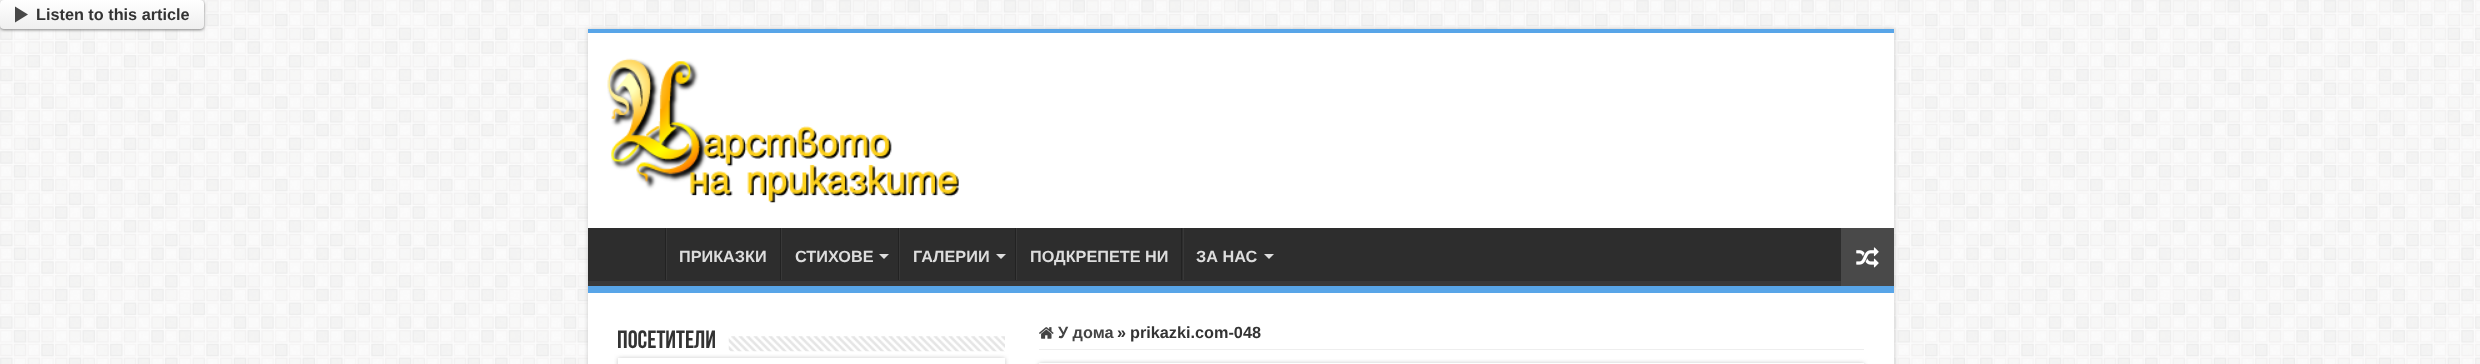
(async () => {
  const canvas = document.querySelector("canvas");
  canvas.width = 2480;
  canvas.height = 364;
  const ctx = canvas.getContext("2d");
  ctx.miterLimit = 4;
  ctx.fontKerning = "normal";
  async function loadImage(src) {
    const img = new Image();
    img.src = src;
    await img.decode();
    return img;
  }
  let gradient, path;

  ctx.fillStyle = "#ffffff";
  ctx.fillRect(0, 0, 2480, 364);
  ctx.drawImage(await loadImage("img/1.png"), 0, 0, 2480, 364);
  ctx.fillStyle = "#808080";
  ctx.filter = "blur(1.5px)";
  ctx.beginPath();
  ctx.roundRect(0, 1, 204, 29, 4);
  ctx.fill();
  ctx.filter = "none";
  gradient = ctx.createLinearGradient(102, 0, 102, 29);
  gradient.addColorStop(0, "#ffffff");
  gradient.addColorStop(1, "#efefef");
  ctx.fillStyle = gradient;
  ctx.beginPath();
  ctx.roundRect(0, 0, 204, 29, 4);
  ctx.fill();
  ctx.fillStyle = "#484848";
  path = new Path2D("M28 14.5L15 22.5V6.5Z");
  ctx.fill(path);
  ctx.fillStyle = "#cacaca";
  ctx.filter = "blur(2px)";
  ctx.beginPath();
  ctx.rect(588, 29, 1306, 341);
  ctx.fill();
  ctx.filter = "none";
  ctx.fillStyle = "#ffffff";
  ctx.fillRect(588, 33, 1306, 331);
  ctx.fillStyle = "#58a5e8";
  ctx.fillRect(588, 29, 1306, 4);
  ctx.drawImage(await loadImage("img/2.png"), 607, 58, 352, 145);
  ctx.fillStyle = "#2d2d2d";
  ctx.fillRect(588, 228, 1253, 53);
  ctx.save();
  ctx.beginPath();
  ctx.rect(588, 228, 1306, 58);
  ctx.clip();
  ctx.fillStyle = "#393939";
  path = new Path2D("M464 104H2018V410H464ZM586 220H1892C1893 220 1894 221 1894 221V280C1894 281 1893 281 1892 281H586C586 281 585 281 585 280V221C585 221 586 220 586 220Z");
  ctx.fill(path, "evenodd");
  ctx.restore();
  for (const [x, y, w, h, color] of [
    [588, 286, 1306, 7, "#58a5e8"],
    [665, 228, 1, 52, "#222222"],
    [666, 228, 1, 52, "#383838"],
    [780, 228, 1, 52, "#222222"],
    [781, 228, 1, 52, "#383838"],
  ]) {
    ctx.fillStyle = color;
    ctx.fillRect(x, y, w, h);
  }
  ctx.fillStyle = "#dddddd";
  path = new Path2D("M879 254H889L884 259Z");
  ctx.fill(path);
  ctx.fillStyle = "#222222";
  ctx.fillRect(898, 228, 1, 52);
  ctx.fillStyle = "#383838";
  ctx.fillRect(899, 228, 1, 52);
  ctx.fillStyle = "#dddddd";
  path = new Path2D("M996 254H1006L1001 259Z");
  ctx.fill(path);
  for (const [x, y, w, h, color] of [
    [1015, 228, 1, 52, "#222222"],
    [1016, 228, 1, 52, "#383838"],
    [1181, 228, 1, 52, "#222222"],
    [1183, 228, 1, 52, "#383838"],
  ]) {
    ctx.fillStyle = color;
    ctx.fillRect(x, y, w, h);
  }
  ctx.fillStyle = "#dddddd";
  path = new Path2D("M1264 254H1274L1269 259Z");
  ctx.fill(path);
  ctx.fillStyle = "#494949";
  ctx.fillRect(1841, 228, 53, 58);
  ctx.drawImage(await loadImage("img/3.png"), 1856, 247, 23, 21);
  ctx.save();
  path = new Path2D("M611 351H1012V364H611ZM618 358H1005V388H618Z");
  ctx.clip(path, "evenodd");
  ctx.fillStyle = "#cacaca";
  ctx.filter = "blur(2px)";
  ctx.beginPath();
  ctx.rect(618, 358, 387, 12);
  ctx.fill();
  ctx.filter = "none";
  ctx.restore();
  ctx.drawImage(await loadImage("img/4.png"), 728, 336, 277, 16);
  ctx.fillStyle = "#eeeeee";
  ctx.fillRect(1039, 349, 825, 1);
  ctx.drawImage(await loadImage("img/5.png"), 1039, 327, 15, 12);
  ctx.fillStyle = "#cacaca";
  ctx.filter = "blur(2px)";
  ctx.beginPath();
  ctx.rect(1039, 363, 825, 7);
  ctx.fill();
  ctx.filter = "none";
  ctx.fillStyle = "#ffffff";
  ctx.fillRect(1039, 363, 825, 1);
  ctx.font = "bold 16.25px Liberation Sans";
  ctx.fillStyle = "#333333";
  ctx.fillText("Listen to this article", 36, 20);
  ctx.fillStyle = "#dddddd";
  for (const [text, x, y] of [
    ["ПРИКАЗКИ", 679, 262],
    ["СТИХОВЕ", 795, 262],
    ["ГАЛЕРИИ", 913, 262],
    ["ПОДКРЕПЕТЕ НИ", 1030, 262],
    ["ЗА НАС", 1196, 262],
  ]) {
    ctx.fillText(text, x, y);
  }
  ctx.font = "bold 25px Bebas Neue";
  ctx.fillStyle = "#333333";
  ctx.fillText("Посетители", 617, 348);
  ctx.font = "bold 16.25px Liberation Sans";
  ctx.fillStyle = "#444444";
  ctx.fillText("У дома", 1058, 338);
  ctx.fillStyle = "#333333";
  ctx.fillText("»", 1117, 338);
  ctx.fillText("prikazki.com-048", 1130, 338);
})();
